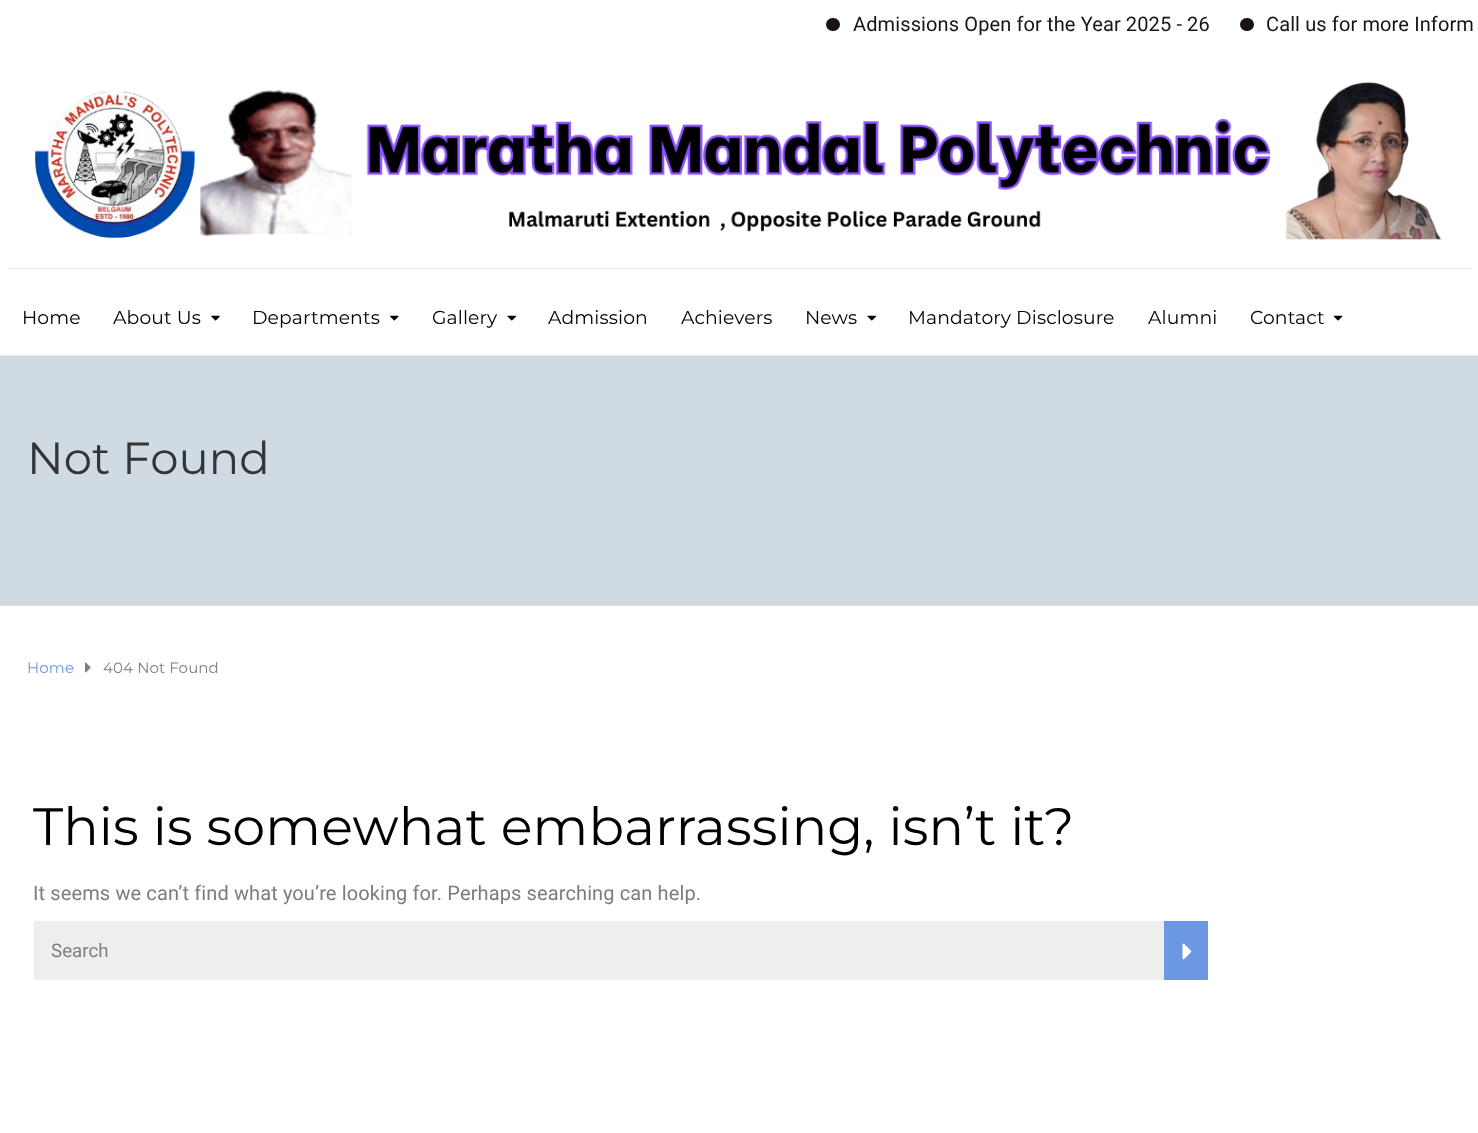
(async () => {
  const canvas = document.querySelector("canvas");
  canvas.width = 1478;
  canvas.height = 1133;
  const ctx = canvas.getContext("2d");
  ctx.miterLimit = 4;
  ctx.fontKerning = "normal";
  async function loadImage(src) {
    const img = new Image();
    img.src = src;
    await img.decode();
    return img;
  }

  ctx.fillStyle = "#ffffff";
  ctx.fillRect(0, 0, 1478, 1133);
  ctx.fillStyle = "#1b1313";
  ctx.beginPath();
  ctx.roundRect(826, 18, 14, 13, 6.5);
  ctx.fill();
  ctx.beginPath();
  ctx.roundRect(1240, 18, 14, 13, 6.5);
  ctx.fill();
  ctx.fillStyle = "#ebebeb";
  ctx.fillRect(0, 355, 1478, 1);
  ctx.fillStyle = "#e5e5e5";
  ctx.fillRect(9, 268, 1462, 1);
  ctx.drawImage(await loadImage("img/1.png"), 35, 82, 1407, 158);
  ctx.drawImage(await loadImage("img/2.png"), 211, 315, 9, 6);
  ctx.drawImage(await loadImage("img/3.png"), 390, 315, 9, 6);
  ctx.drawImage(await loadImage("img/4.png"), 507, 315, 9, 6);
  ctx.drawImage(await loadImage("img/4.png"), 867, 315, 9, 6);
  ctx.drawImage(await loadImage("img/5.png"), 1333, 315, 10, 6);
  ctx.fillStyle = "#d0dae3";
  ctx.fillRect(0, 356, 1478, 249);
  ctx.fillStyle = "#e1e1e1";
  ctx.fillRect(0, 605, 1478, 1);
  ctx.drawImage(await loadImage("img/6.png"), 85, 662, 6, 11);
  ctx.fillStyle = "#eeeeee";
  ctx.fillRect(34, 921, 1130, 59);
  ctx.fillStyle = "#6c98e1";
  ctx.fillRect(1164, 921, 44, 59);
  ctx.drawImage(await loadImage("img/7.png"), 1182, 943, 10, 17);
  ctx.letterSpacing = "0.12px";
  ctx.font = "20px Roboto";
  ctx.fillStyle = "#1b1313";
  ctx.fillText("Admissions Open for the Year 2025 - 26", 853, 31);
  ctx.fillText("Call us for more Inform", 1266, 31);
  ctx.font = "18.75px Montserrat";
  ctx.fillStyle = "#000000";
  for (const [text, x, y] of [
    ["Home", 22, 324],
    ["About Us", 113, 324],
    ["Departments", 252, 324],
    ["Gallery", 432, 324],
    ["Admission", 548, 324],
    ["Achievers", 681, 324],
    ["News", 805, 324],
    ["Mandatory Disclosure", 908, 324],
    ["Alumni", 1148, 324],
    ["Contact", 1250, 324],
  ]) {
    ctx.fillText(text, x, y);
  }
  ctx.font = "45px Montserrat";
  ctx.fillStyle = "#333436";
  ctx.fillText("Not Found", 27, 474);
  ctx.font = "15px Montserrat";
  ctx.fillStyle = "#6c98e1";
  ctx.fillText("Home", 27, 673);
  ctx.fillStyle = "#7b8085";
  ctx.fillText("404 Not Found", 103, 673);
  ctx.font = "52.5px Montserrat";
  ctx.fillStyle = "#000000";
  ctx.fillText("This is somewhat embarrassing, isn’t it?", 33, 845);
  ctx.font = "20px Roboto";
  ctx.fillStyle = "#7c7c7c";
  ctx.fillText("It seems we can’t find what you’re looking for. Perhaps searching can help.", 33, 900);
  ctx.letterSpacing = "0px";
  ctx.font = "18.75px Roboto";
  ctx.fillStyle = "#7b8085";
  ctx.fillText("Search", 51, 957);
})();
